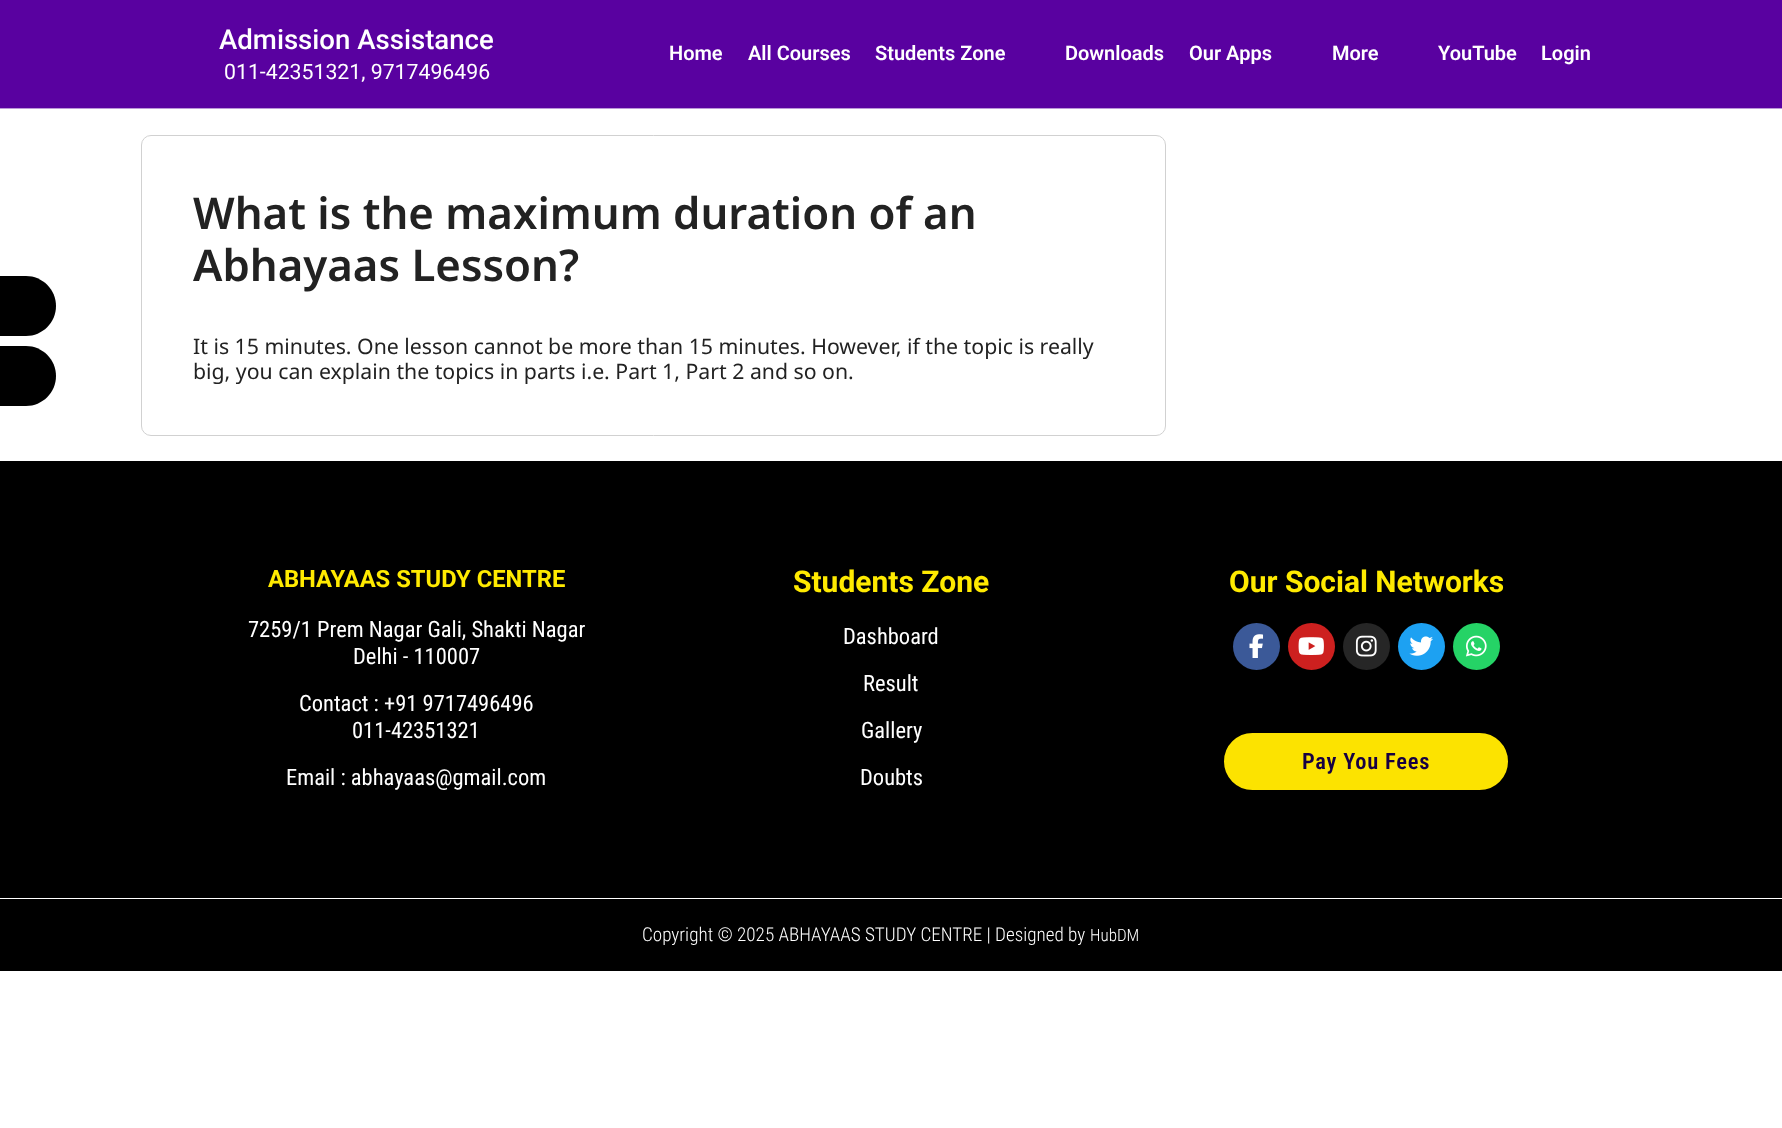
(async () => {
  const canvas = document.querySelector("canvas");
  canvas.width = 1782;
  canvas.height = 1128;
  const ctx = canvas.getContext("2d");
  ctx.miterLimit = 4;
  ctx.fontKerning = "normal";
  async function loadImage(src) {
    const img = new Image();
    img.src = src;
    await img.decode();
    return img;
  }
  let path;

  ctx.fillStyle = "#ffffff";
  ctx.fillRect(0, 0, 1782, 1128);
  ctx.fillStyle = "#5901a0";
  ctx.fillRect(0, 0, 1782, 108);
  ctx.fillStyle = "#bb97d8";
  ctx.fillRect(0, 108, 1782, 1);
  ctx.fillStyle = "#000000";
  path = new Path2D("M-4 276H26C42.5 276 56 289.5 56 306C56 322.5 42.5 336 26 336H-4Z");
  ctx.fill(path);
  path = new Path2D("M-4 346H26C42.5 346 56 359.5 56 376C56 392.5 42.5 406 26 406H-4Z");
  ctx.fill(path);
  ctx.beginPath();
  ctx.roundRect(141.5, 135.5, 1024, 300, 9.5);
  ctx.strokeStyle = "#d1d1d1";
  ctx.stroke();
  ctx.fillRect(0, 461, 1782, 437);
  ctx.fillStyle = "#3b5998";
  ctx.beginPath();
  ctx.arc(1256.5, 646.5, 23.5, 0, Math.PI * 2);
  ctx.fill();
  ctx.drawImage(await loadImage("img/1.png"), 1249, 634, 15, 24);
  ctx.fillStyle = "#cd201f";
  ctx.beginPath();
  ctx.arc(1311.5, 646.5, 23.5, 0, Math.PI * 2);
  ctx.fill();
  ctx.drawImage(await loadImage("img/2.png"), 1298, 637, 26, 18);
  ctx.fillStyle = "#262626";
  ctx.beginPath();
  ctx.arc(1366.5, 646.5, 23.5, 0, Math.PI * 2);
  ctx.fill();
  ctx.drawImage(await loadImage("img/3.png"), 1355, 635, 22, 22);
  ctx.fillStyle = "#1da1f2";
  ctx.beginPath();
  ctx.arc(1421.5, 646.5, 23.5, 0, Math.PI * 2);
  ctx.fill();
  ctx.drawImage(await loadImage("img/4.png"), 1409, 636, 24, 20);
  ctx.fillStyle = "#25d366";
  ctx.beginPath();
  ctx.arc(1476.5, 646.5, 23.5, 0, Math.PI * 2);
  ctx.fill();
  ctx.drawImage(await loadImage("img/5.png"), 1465, 635, 22, 22);
  ctx.fillStyle = "#fce300";
  ctx.beginPath();
  ctx.roundRect(1225.5, 734.5, 281, 54, 27);
  ctx.fill();
  ctx.strokeStyle = "#fce300";
  ctx.lineWidth = 3;
  ctx.stroke();
  ctx.fillStyle = "#000000";
  ctx.fillRect(0, 899, 1782, 72);
  ctx.font = "500 27.6px Roboto";
  ctx.fillStyle = "#ffffff";
  ctx.fillText("Admission Assistance", 219, 49);
  ctx.font = "21.25px Roboto";
  ctx.fillText("011-42351321, 9717496496", 224, 79);
  ctx.font = "600 20px Roboto";
  for (const [text, x, y] of [
    ["Home", 669, 60],
    ["All Courses", 748, 60],
    ["Students Zone", 875, 60],
    ["Downloads", 1065, 60],
    ["Our Apps", 1189, 60],
    ["More", 1332, 60],
    ["YouTube", 1438, 60],
    ["Login", 1541, 60],
  ]) {
    ctx.fillText(text, x, y);
  }
  ctx.font = "600 43.75px Noto Sans";
  ctx.fillStyle = "#222222";
  ctx.fillText("What is the maximum duration of an", 193, 229);
  ctx.fillText("Abhayaas Lesson?", 193, 281);
  ctx.font = "21.25px Noto Sans";
  ctx.fillText("It is 15 minutes. One lesson cannot be more than 15 minutes. However, if the topic is really", 193, 354);
  ctx.fillText("big, you can explain the topics in parts i.e. Part 1, Part 2 and so on.", 193, 379);
  ctx.font = "bold 23.75px Roboto";
  ctx.fillStyle = "#ffea00";
  ctx.fillText("ABHAYAAS STUDY CENTRE", 268, 587);
  ctx.font = "22.5px Roboto Condensed";
  ctx.fillStyle = "#ffffff";
  for (const [text, x, y] of [
    ["7259/1 Prem Nagar Gali, Shakti Nagar", 248, 637],
    ["Delhi - 110007", 353, 664],
    ["Contact : +91 9717496496", 299, 711],
    ["011-42351321", 352, 738],
    ["Email : abhayaas@gmail.com", 286, 785],
  ]) {
    ctx.fillText(text, x, y);
  }
  ctx.font = "bold 30px Roboto";
  ctx.fillStyle = "#ffea00";
  ctx.fillText("Students Zone", 793, 592);
  ctx.font = "22.5px Roboto Condensed";
  ctx.fillStyle = "#ffffff";
  for (const [text, x, y] of [
    ["Dashboard", 843, 644],
    ["Result", 863, 691],
    ["Gallery", 861, 738],
    ["Doubts", 860, 785],
  ]) {
    ctx.fillText(text, x, y);
  }
  ctx.font = "bold 30px Roboto";
  ctx.fillStyle = "#ffea00";
  ctx.fillText("Our Social Networks", 1229, 592);
  ctx.letterSpacing = "0.75px";
  ctx.font = "600 22.5px Roboto Condensed";
  ctx.fillStyle = "#160042";
  ctx.fillText("Pay You Fees", 1302, 769);
  ctx.letterSpacing = "0px";
  ctx.font = "300 19.1px Roboto Condensed";
  ctx.fillStyle = "#ffffff";
  ctx.fillText("Copyright © 2025 ABHAYAAS STUDY CENTRE | Designed by", 642, 941);
  ctx.font = "300 17px Roboto Condensed";
  ctx.fillText("HubDM", 1090, 941);
})();
